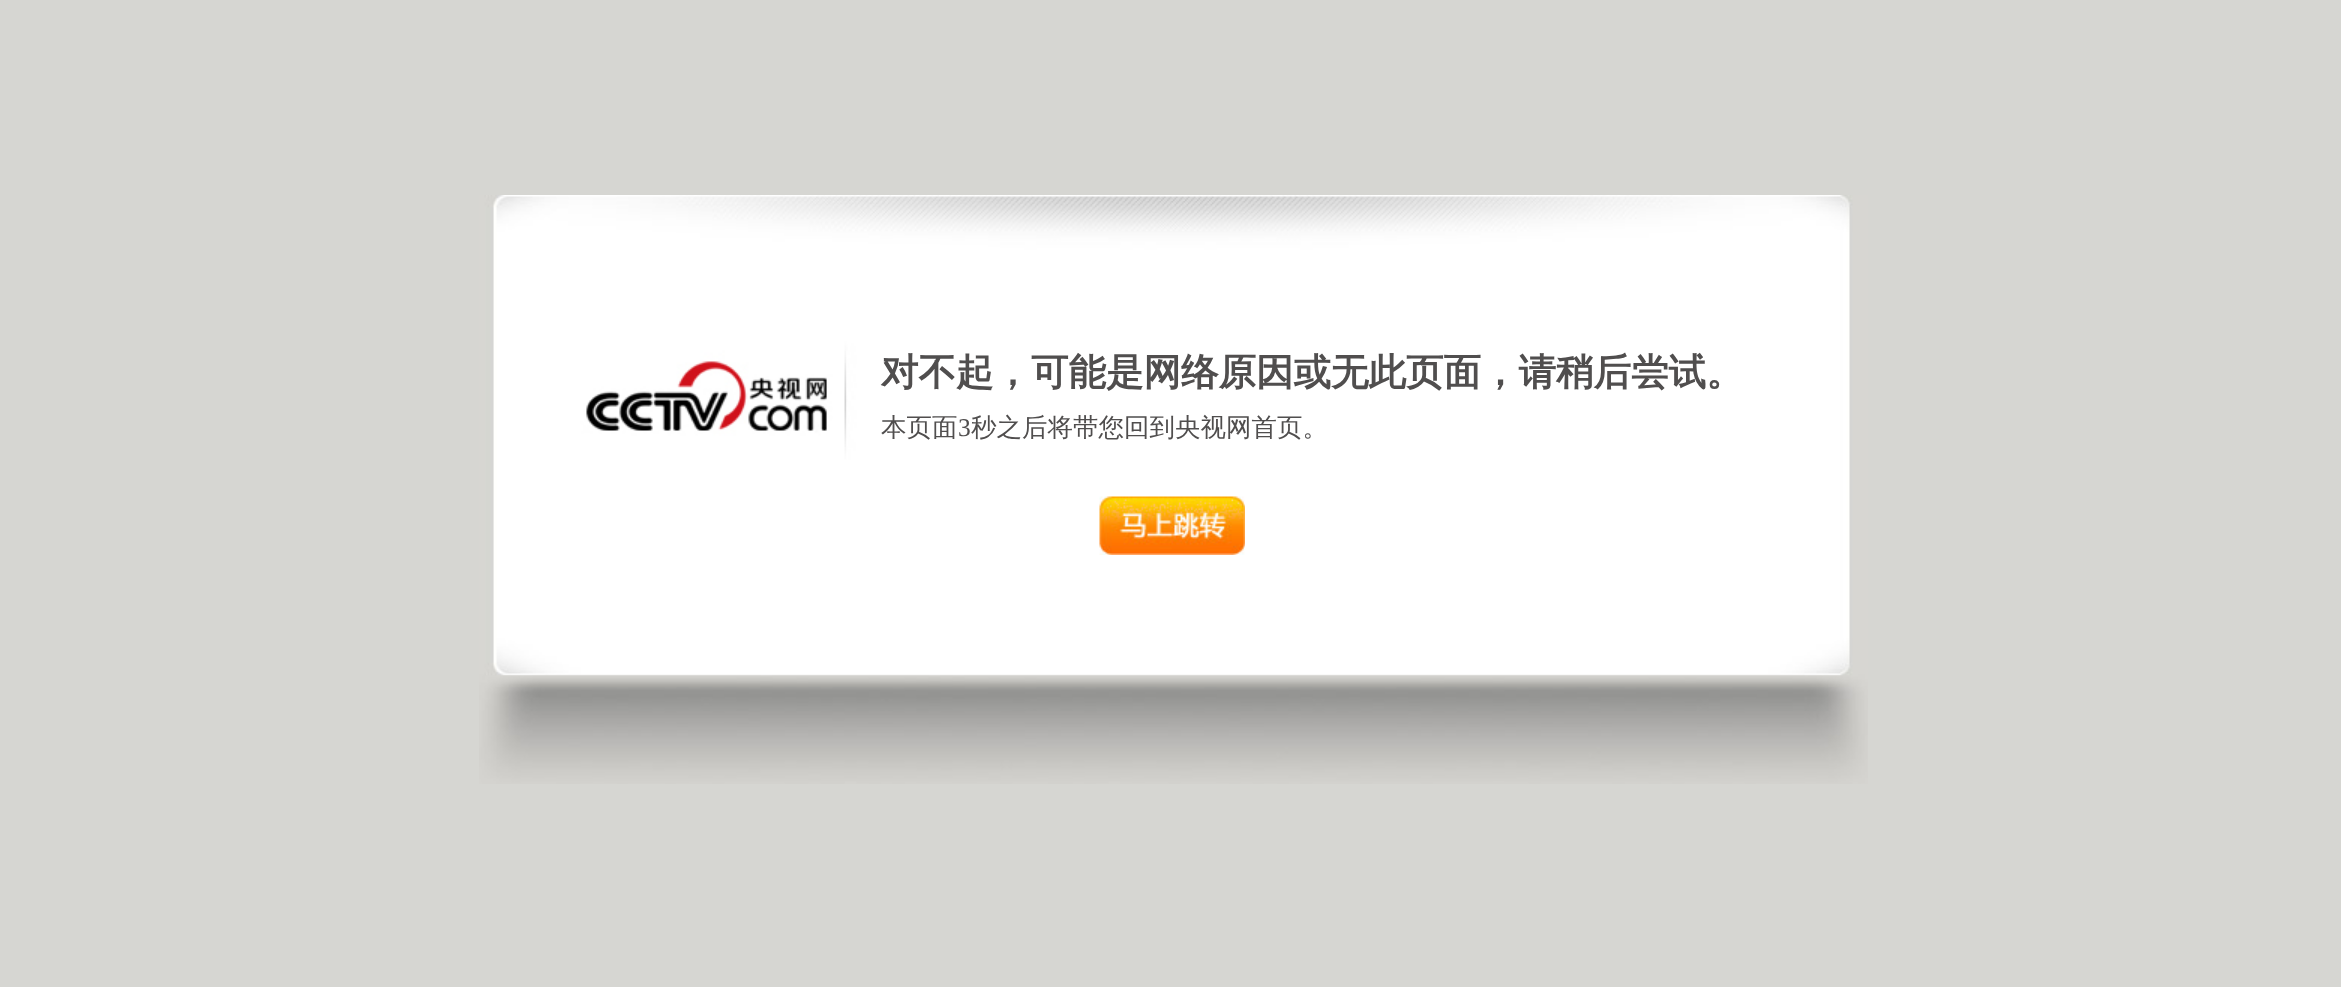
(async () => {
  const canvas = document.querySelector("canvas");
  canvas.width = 2341;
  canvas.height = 987;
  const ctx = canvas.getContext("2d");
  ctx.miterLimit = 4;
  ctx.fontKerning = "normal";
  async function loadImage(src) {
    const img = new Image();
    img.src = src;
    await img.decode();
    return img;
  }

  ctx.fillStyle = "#d6d6d2";
  ctx.fillRect(0, 0, 2341, 987);
  ctx.drawImage(await loadImage("img/1.png"), 479, 195, 1389, 589);
  ctx.drawImage(await loadImage("img/2.png"), 1099, 496, 146, 59);
  ctx.font = "bold 37.5px WenQuanYi Zen Hei";
  ctx.fillStyle = "#504e4e";
  ctx.fillText("对不起，可能是网络原因或无此页面，请稍后尝试。", 881, 385);
  ctx.font = "500 25.5px WenQuanYi Zen Hei";
  ctx.fillText("本页面", 881, 436);
  ctx.font = "25.5px Liberation Serif";
  ctx.fillText("3", 958, 436);
  ctx.font = "500 25.5px WenQuanYi Zen Hei";
  ctx.fillText("秒之后将带您回到央视网首页。", 971, 436);
})();
